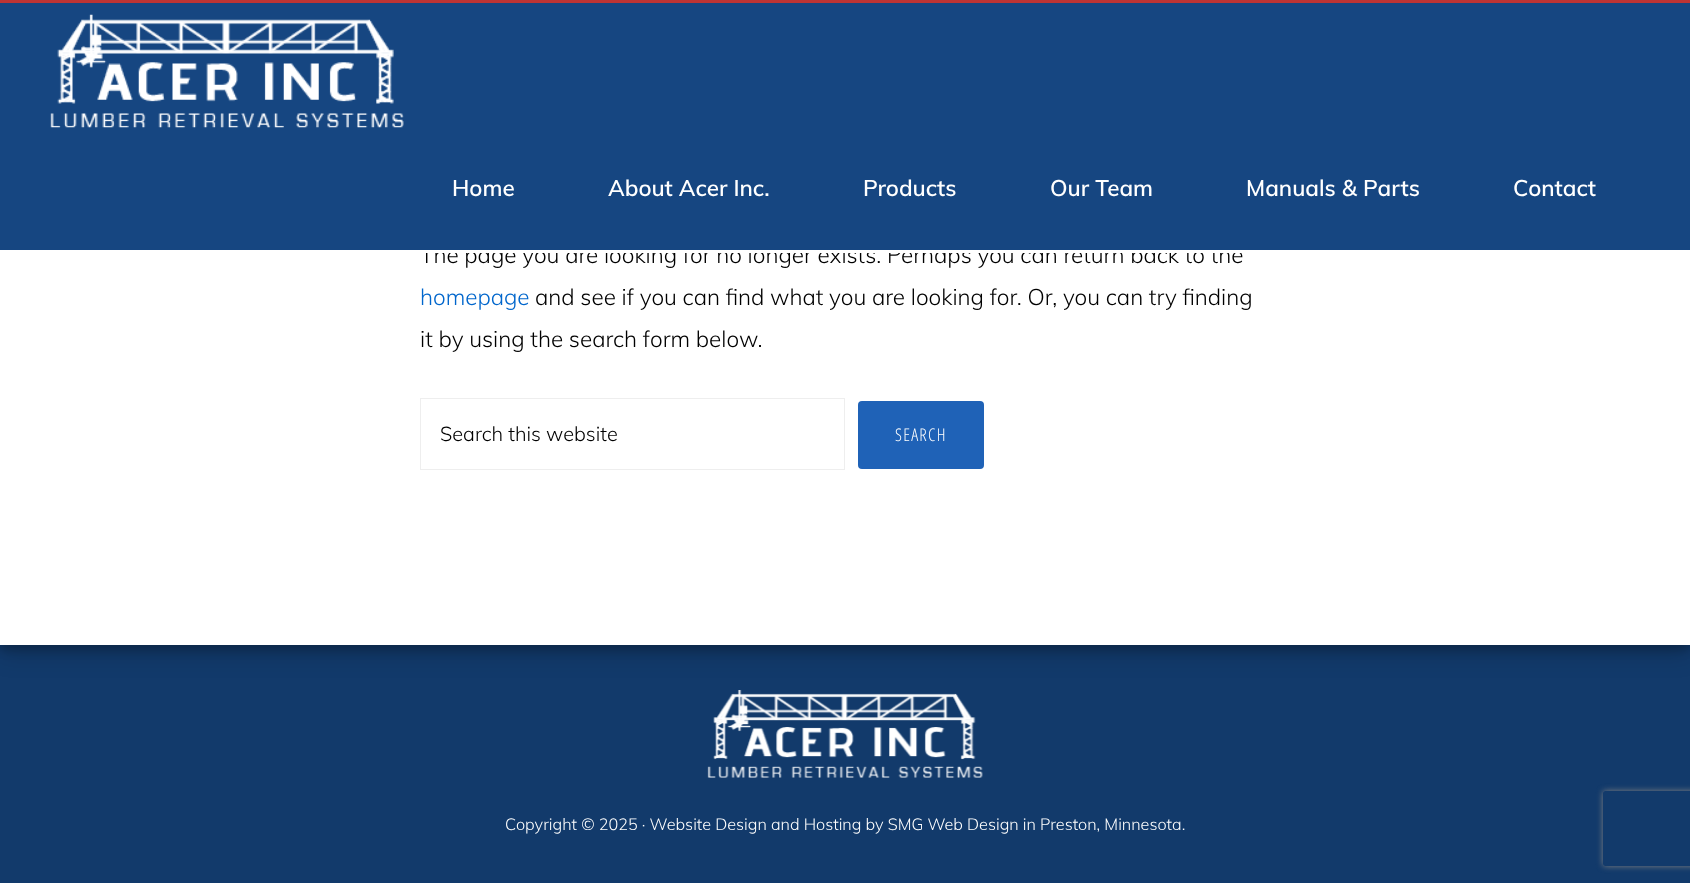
(async () => {
  const canvas = document.querySelector("canvas");
  canvas.width = 1690;
  canvas.height = 883;
  const ctx = canvas.getContext("2d");
  ctx.miterLimit = 4;
  ctx.fontKerning = "normal";
  async function loadImage(src) {
    const img = new Image();
    img.src = src;
    await img.decode();
    return img;
  }
  let path;

  ctx.fillStyle = "#123a6b";
  ctx.fillRect(0, 0, 1690, 883);
  ctx.drawImage(await loadImage("img/2.png"), 707, 690, 276, 88);
  ctx.fillStyle = "rgba(0, 0, 0, 0.19)";
  ctx.filter = "blur(12.5px)";
  ctx.beginPath();
  ctx.rect(0, -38, 1690, 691);
  ctx.fill();
  ctx.filter = "none";
  ctx.fillStyle = "rgba(0, 0, 0, 0.2)";
  ctx.filter = "blur(5px)";
  ctx.beginPath();
  ctx.rect(0, -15, 1690, 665);
  ctx.fill();
  ctx.filter = "none";
  ctx.fillStyle = "#ffffff";
  ctx.fillRect(0, 253, 1690, 392);
  ctx.fillStyle = "#be3434";
  ctx.fillRect(0, 0, 1690, 3);
  ctx.strokeStyle = "#eeeeee";
  ctx.strokeRect(420.5, 398.5, 424, 71);
  ctx.fillStyle = "#1f62b7";
  ctx.beginPath();
  ctx.roundRect(858, 401, 126, 68, 4);
  ctx.fill();
  ctx.save();
  path = new Path2D("M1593 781H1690V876H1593ZM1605.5 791H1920.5C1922 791 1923 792 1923 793.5V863.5C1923 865 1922 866 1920.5 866H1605.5C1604 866 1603 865 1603 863.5V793.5C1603 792 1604 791 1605.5 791Z");
  ctx.clip(path, "evenodd");
  ctx.fillStyle = "#808080";
  ctx.filter = "blur(3px)";
  ctx.beginPath();
  ctx.roundRect(1603, 791, 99, 75, 2.5);
  ctx.fill();
  ctx.filter = "none";
  ctx.restore();
  ctx.font = "300 22.5px Muli";
  ctx.fillStyle = "#000000";
  ctx.fillText("The page you are looking for no longer exists. Perhaps you can return back to the", 420, 263);
  ctx.fillStyle = "#164681";
  ctx.fillRect(0, 3, 1690, 247);
  ctx.font = "600 22.5px Muli";
  ctx.fillStyle = "#ffffff";
  for (const [text, x, y] of [
    ["Contact", 1513, 196],
    ["Manuals & Parts", 1246, 196],
    ["Our Team", 1050, 196],
    ["Products", 863, 196],
    ["About Acer Inc.", 608, 196],
    ["Home", 452, 196],
  ]) {
    ctx.fillText(text, x, y);
  }
  ctx.drawImage(await loadImage("img/1.png"), 50, 14, 354, 114);
  ctx.fillRect(0, 250, 1690, 3);
  ctx.font = "300 22.5px Muli";
  ctx.fillStyle = "#0066cc";
  ctx.fillText("homepage", 420, 305);
  ctx.fillStyle = "#000000";
  ctx.fillText("and see if you can find what you are looking for. Or, you can try finding", 535, 305);
  ctx.fillText("it by using the search form below.", 420, 347);
  ctx.font = "300 20px Muli";
  ctx.fillText("Search this website", 440, 441);
  ctx.letterSpacing = "1.25px";
  ctx.font = "300 17.5px Open Sans Condensed";
  ctx.fillStyle = "#ffffff";
  ctx.fillText("SEARCH", 895, 441);
  ctx.letterSpacing = "0px";
  ctx.font = "300 16.25px Muli";
  ctx.fillText("Copyright © 2025 · Website Design and Hosting by SMG Web Design in Preston, Minnesota.", 505, 830);
})();
